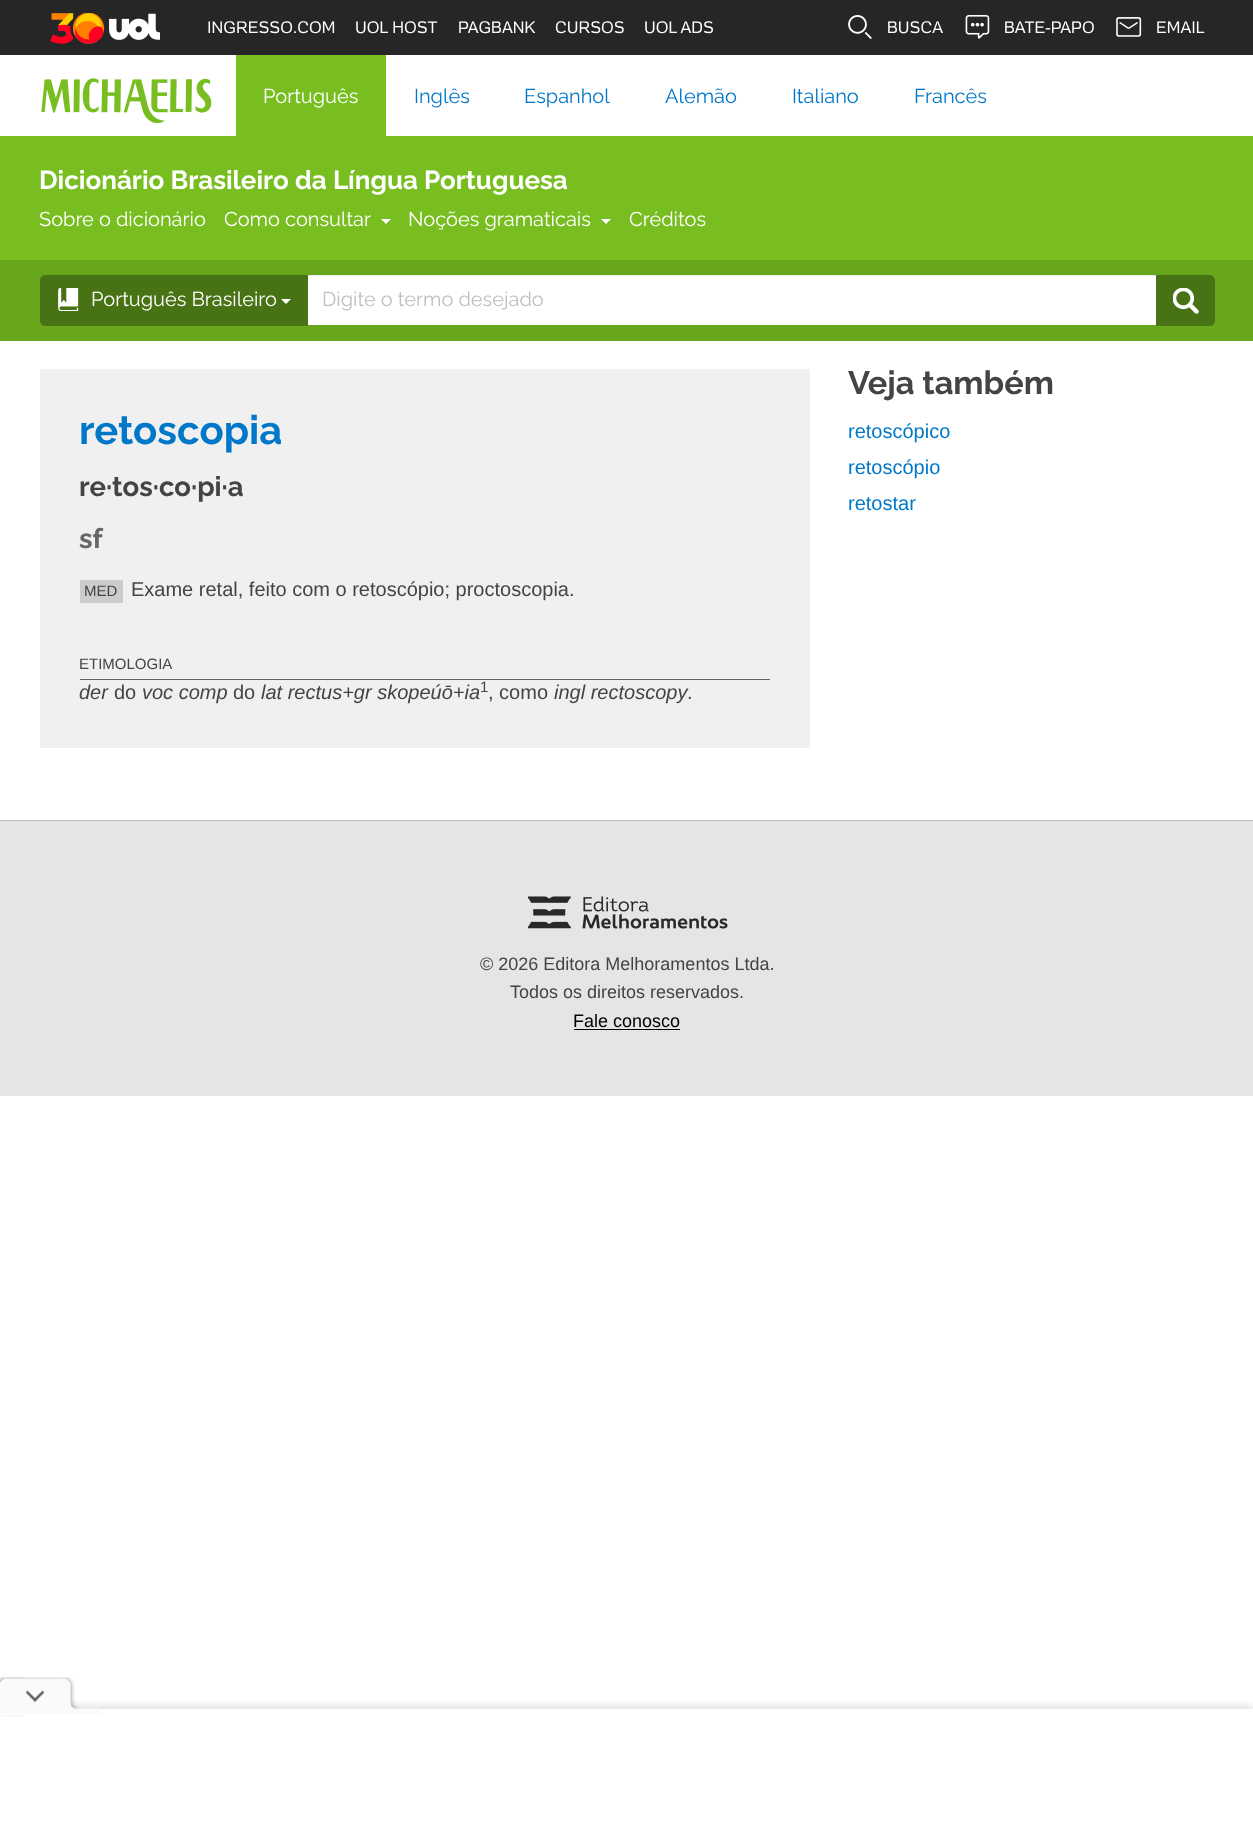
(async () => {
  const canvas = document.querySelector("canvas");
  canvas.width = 1253;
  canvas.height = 1846;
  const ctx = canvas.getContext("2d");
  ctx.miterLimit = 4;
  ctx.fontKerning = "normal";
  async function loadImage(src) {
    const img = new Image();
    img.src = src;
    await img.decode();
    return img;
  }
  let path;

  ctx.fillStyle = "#ffffff";
  ctx.fillRect(0, 0, 1253, 1846);
  ctx.fillStyle = "#262626";
  ctx.fillRect(0, 0, 1253, 55);
  ctx.drawImage(await loadImage("img/1.png"), 50, 13, 110, 31);
  ctx.drawImage(await loadImage("img/2.png"), 848, 15, 24, 24);
  ctx.drawImage(await loadImage("img/3.png"), 965, 15, 25, 24);
  ctx.drawImage(await loadImage("img/4.png"), 1116, 17, 26, 20);
  ctx.drawImage(await loadImage("img/5.png"), 41, 78, 171, 46);
  ctx.fillStyle = "#78be20";
  ctx.fillRect(236, 55, 150, 81);
  ctx.fillRect(0, 136, 1253, 124);
  ctx.fillStyle = "#ffffff";
  path = new Path2D("M381 219H391L386 224Z");
  ctx.fill(path);
  path = new Path2D("M601 219H611L606 224Z");
  ctx.fill(path);
  ctx.fillStyle = "#68a61c";
  ctx.fillRect(0, 260, 1253, 81);
  ctx.fillStyle = "#ececec";
  ctx.fillRect(306, 275, 852, 1);
  ctx.fillStyle = "#487314";
  ctx.beginPath();
  ctx.roundRect(40.5, 275.5, 267, 50, [4.5, 0, 0, 4.5]);
  ctx.fill();
  ctx.strokeStyle = "#487314";
  ctx.stroke();
  ctx.drawImage(await loadImage("img/6.png"), 58, 288, 21, 23);
  ctx.fillStyle = "#ffffff";
  path = new Path2D("M281 299H291L286 304Z");
  ctx.fill(path);
  ctx.fillRect(308, 276, 848, 49);
  ctx.fillStyle = "#487314";
  ctx.beginPath();
  ctx.roundRect(1156.5, 275.5, 58, 50, [0, 4.5, 4.5, 0]);
  ctx.fill();
  ctx.stroke();
  ctx.drawImage(await loadImage("img/7.png"), 1173, 288, 26, 26);
  for (const [x, y, w, h, color] of [
    [40, 369, 770, 379, "#f0f0f0"],
    [80, 580, 43, 23, "#cccccc"],
    [80, 679, 690, 1, "#626262"],
    [0, 821, 1253, 275, "#e5e5e5"],
    [0, 820, 1253, 1, "#bfbfbf"],
  ]) {
    ctx.fillStyle = color;
    ctx.fillRect(x, y, w, h);
  }
  ctx.drawImage(await loadImage("img/8.png"), 528, 896, 200, 33);
  ctx.fillStyle = "#000000";
  ctx.fillRect(574, 1029, 106, 1);
  ctx.save();
  ctx.beginPath();
  ctx.rect(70, 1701, 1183, 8);
  ctx.clip();
  ctx.fillStyle = "rgba(0, 0, 0, 0.2)";
  ctx.filter = "blur(6px)";
  ctx.beginPath();
  ctx.rect(0, 1709, 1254, 137);
  ctx.fill();
  ctx.filter = "none";
  ctx.restore();
  ctx.fillStyle = "rgba(0, 0, 0, 0.27)";
  ctx.filter = "blur(2.5px)";
  ctx.beginPath();
  ctx.roundRect(0, 1680, 25, 33, 5);
  ctx.fill();
  ctx.filter = "none";
  ctx.fillStyle = "#ffffff";
  ctx.fillRect(0, 1714, 25, 1);
  ctx.drawImage(await loadImage("img/9.png"), 0, 1677, 100, 37);
  ctx.font = "16.25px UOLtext";
  for (const [text, x, y] of [
    ["INGRESSO.COM", 207, 33],
    ["UOL HOST", 355, 33],
    ["PAGBANK", 458, 33],
    ["CURSOS", 555, 33],
    ["UOL ADS", 644, 33],
    ["BUSCA", 887, 33],
    ["BATE-PAPO", 1004, 33],
    ["EMAIL", 1156, 33],
  ]) {
    ctx.fillText(text, x, y);
  }
  ctx.font = "20px Raleway";
  ctx.fillText("Português", 263, 103);
  ctx.fillStyle = "#0077c8";
  for (const [text, x, y] of [
    ["Inglês", 414, 103],
    ["Espanhol", 524, 103],
    ["Alemão", 665, 103],
    ["Italiano", 792, 103],
    ["Francês", 914, 103],
  ]) {
    ctx.fillText(text, x, y);
  }
  ctx.font = "bold 26px Raleway";
  ctx.fillStyle = "#ffffff";
  ctx.fillText("Dicionário Brasileiro da Língua Portuguesa", 39, 189);
  ctx.font = "20px Raleway";
  for (const [text, x, y] of [
    ["Sobre o dicionário", 39, 226],
    ["Como consultar", 224, 226],
    ["Noções gramaticais", 408, 226],
    ["Créditos", 629, 226],
    ["Português Brasileiro", 91, 306],
  ]) {
    ctx.fillText(text, x, y);
  }
  ctx.fillStyle = "#bfbfbf";
  ctx.fillText("Digite o termo desejado", 322, 306);
  ctx.font = "bold 40px Raleway";
  ctx.fillStyle = "#0077c8";
  ctx.fillText("retoscopia", 79, 444);
  ctx.font = "bold 27.5px Raleway";
  ctx.fillStyle = "#444444";
  ctx.fillText("re·tos·co·pi·a", 79, 496);
  ctx.fillStyle = "#666666";
  ctx.fillText("sf", 79, 548);
  ctx.font = "15px Liberation Sans";
  ctx.fillStyle = "#444444";
  ctx.fillText("MED", 84, 596);
  ctx.font = "20px Liberation Sans";
  ctx.fillText("Exame retal, feito com o retoscópio; proctoscopia.", 131, 596);
  ctx.font = "15px Liberation Sans";
  ctx.fillText("ETIMOLOGIA", 79, 669);
  ctx.font = "italic 20px Liberation Sans";
  ctx.fillText("der", 79, 699);
  ctx.font = "20px Liberation Sans";
  ctx.fillText("do", 114, 699);
  ctx.font = "italic 20px Liberation Sans";
  ctx.fillText("voc comp", 142, 699);
  ctx.font = "20px Liberation Sans";
  ctx.fillText("do", 233, 699);
  ctx.font = "italic 20px Liberation Sans";
  ctx.fillText("lat rectus+gr skopeúō+ia", 261, 699);
  ctx.font = "15px Liberation Sans";
  ctx.fillText("1", 480, 692);
  ctx.font = "20px Liberation Sans";
  ctx.fillText(", como", 488, 699);
  ctx.font = "italic 20px Liberation Sans";
  ctx.fillText("ingl rectoscopy", 554, 699);
  ctx.font = "20px Liberation Sans";
  ctx.fillText(".", 687, 699);
  ctx.font = "bold 32.5px Raleway";
  ctx.fillText("Veja também", 848, 394);
  ctx.font = "20px Liberation Sans";
  ctx.fillStyle = "#0077c8";
  for (const [text, x, y] of [
    ["retoscópico", 848, 438],
    ["retoscópio", 848, 474],
    ["retostar", 848, 510],
  ]) {
    ctx.fillText(text, x, y);
  }
  ctx.font = "18px Liberation Sans";
  ctx.fillStyle = "#444444";
  ctx.fillText("© 2026 Editora Melhoramentos Ltda.", 480, 970);
  ctx.fillText("Todos os direitos reservados.", 510, 998);
  ctx.fillStyle = "#000000";
  ctx.fillText("Fale conosco", 573, 1027);
})();
